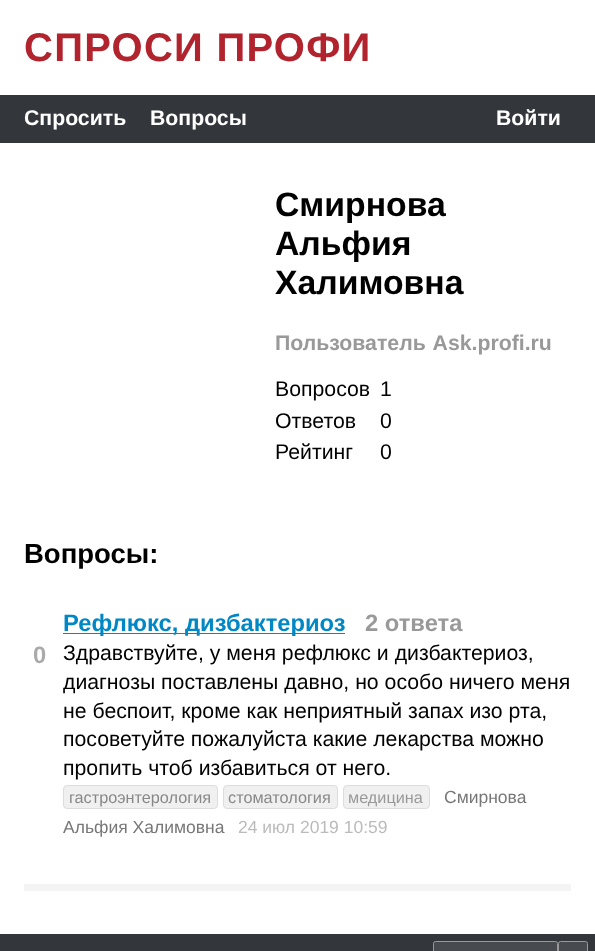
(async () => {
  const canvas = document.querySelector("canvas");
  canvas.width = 595;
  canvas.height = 951;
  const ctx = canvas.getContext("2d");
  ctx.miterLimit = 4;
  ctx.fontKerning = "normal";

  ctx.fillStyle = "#ffffff";
  ctx.fillRect(0, 0, 595, 951);
  ctx.fillStyle = "#33363a";
  ctx.fillRect(0, 95, 595, 48);
  ctx.fillStyle = "#0087c6";
  ctx.fillRect(63, 633, 282, 1);
  ctx.fillStyle = "#f0f0f0";
  ctx.beginPath();
  ctx.roundRect(63.5, 785.5, 154, 23, 3.5);
  ctx.fill();
  ctx.strokeStyle = "#dddddd";
  ctx.stroke();
  ctx.beginPath();
  ctx.roundRect(223.5, 785.5, 114, 23, 3.5);
  ctx.fill();
  ctx.stroke();
  ctx.beginPath();
  ctx.roundRect(343.5, 785.5, 86, 23, 3.5);
  ctx.fill();
  ctx.stroke();
  ctx.fillStyle = "#f4f4f4";
  ctx.fillRect(24, 884, 547, 7);
  ctx.fillStyle = "#33363a";
  ctx.fillRect(0, 934, 595, 17);
  ctx.fillStyle = "#474a4e";
  ctx.beginPath();
  ctx.roundRect(433.5, 941.5, 124, 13, 2);
  ctx.fill();
  ctx.strokeStyle = "#999999";
  ctx.stroke();
  ctx.beginPath();
  ctx.roundRect(558.5, 941.5, 29, 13, 2);
  ctx.fill();
  ctx.stroke();
  ctx.letterSpacing = "1.25px";
  ctx.font = "bold 40px Liberation Sans";
  ctx.fillStyle = "#b1242e";
  ctx.fillText("СПРОСИ ПРОФИ", 24, 61);
  ctx.letterSpacing = "0px";
  ctx.font = "bold 21.25px Liberation Sans";
  ctx.fillStyle = "#ffffff";
  for (const [text, x, y] of [
    ["Спросить", 24, 125],
    ["Вопросы", 150, 125],
    ["Войти", 496, 125],
  ]) {
    ctx.fillText(text, x, y);
  }
  ctx.font = "bold 33.75px Liberation Sans";
  ctx.fillStyle = "#000000";
  for (const [text, x, y] of [
    ["Смирнова", 275, 216],
    ["Альфия", 275, 255],
    ["Халимовна", 275, 294],
  ]) {
    ctx.fillText(text, x, y);
  }
  ctx.wordSpacing = "1px";
  ctx.font = "bold 21.25px Liberation Sans";
  ctx.fillStyle = "#999999";
  ctx.fillText("Пользователь Ask.profi.ru", 275, 350);
  ctx.wordSpacing = "0px";
  ctx.font = "21.25px Liberation Sans";
  ctx.fillStyle = "#000000";
  for (const [text, x, y] of [
    ["Вопросов", 275, 396],
    ["1", 380, 396],
    ["Ответов", 275, 428],
    ["0", 380, 428],
    ["Рейтинг", 275, 459],
    ["0", 380, 459],
  ]) {
    ctx.fillText(text, x, y);
  }
  ctx.font = "bold 27.5px Liberation Sans";
  ctx.fillText("Вопросы:", 24, 563);
  ctx.font = "bold 23.75px Liberation Sans";
  ctx.fillStyle = "#aaaaaa";
  ctx.fillText("0", 33, 663);
  ctx.fillStyle = "#0087c6";
  ctx.fillText("Рефлюкс, дизбактериоз", 63, 631);
  ctx.fillStyle = "#999999";
  ctx.fillText("2 ответа", 365, 631);
  ctx.font = "21.25px Liberation Sans";
  ctx.fillStyle = "#000000";
  for (const [text, x, y] of [
    ["Здравствуйте, у меня рефлюкс и дизбактериоз,", 63, 660],
    ["диагнозы поставлены давно, но особо ничего меня", 63, 689],
    ["не беспоит, кроме как неприятный запах изо рта,", 63, 718],
    ["посоветуйте пожалуйста какие лекарства можно", 63, 746],
    ["пропить чтоб избавиться от него.", 63, 775],
  ]) {
    ctx.fillText(text, x, y);
  }
  ctx.font = "16.25px Liberation Sans";
  ctx.fillStyle = "#888888";
  ctx.fillText("гастроэнтерология", 69, 803);
  ctx.fillText("стоматология", 228, 803);
  ctx.fillStyle = "#999999";
  ctx.fillText("медицина", 348, 803);
  ctx.font = "17.5px Liberation Sans";
  ctx.fillStyle = "#777777";
  ctx.fillText("Смирнова", 444, 803);
  ctx.fillText("Альфия Халимовна", 63, 833);
  ctx.fillStyle = "#bbbbbb";
  ctx.fillText("24 июл 2019 10:59", 238, 833);
})();
